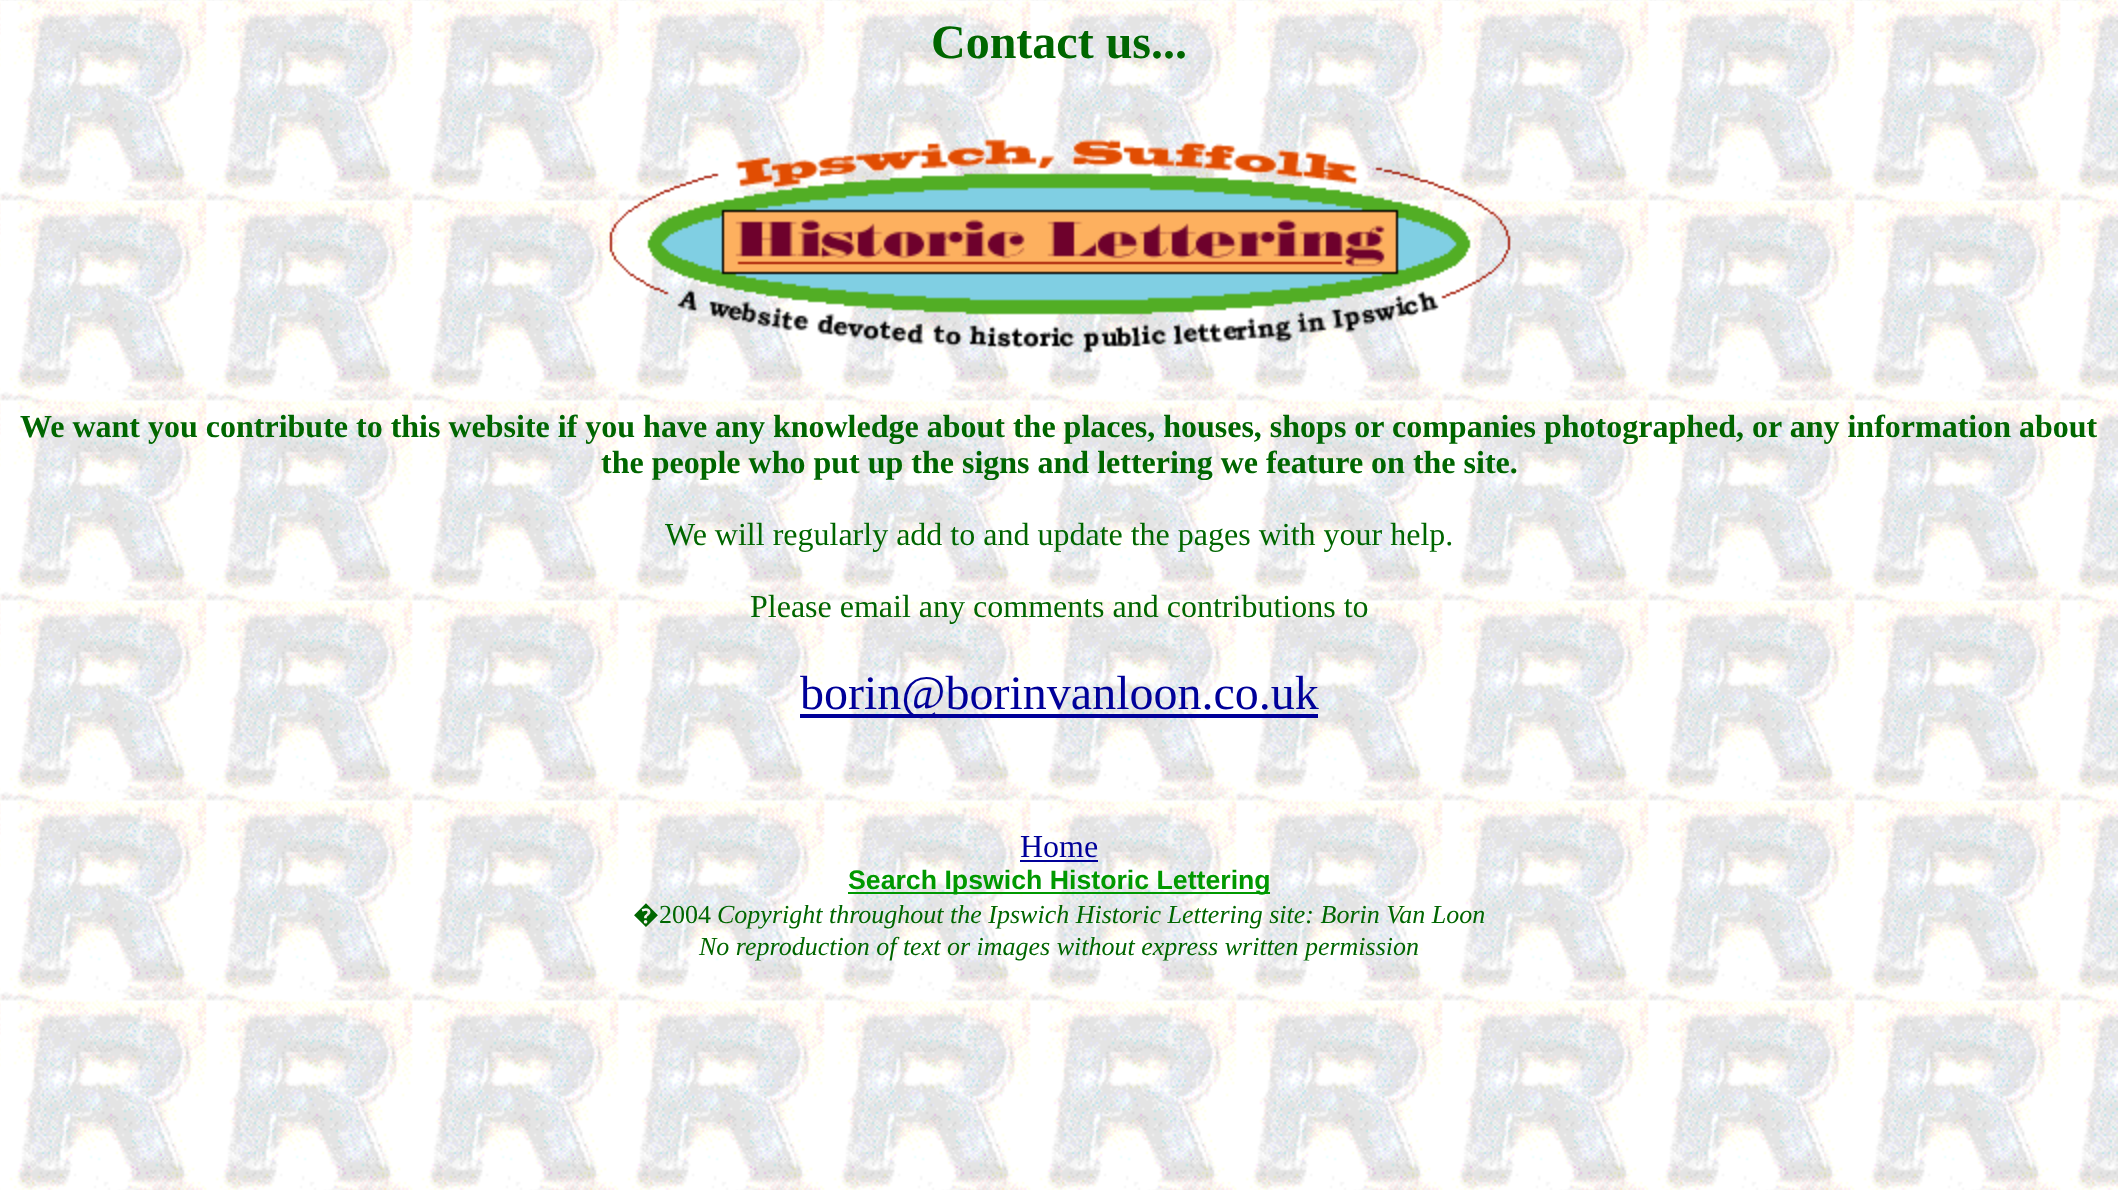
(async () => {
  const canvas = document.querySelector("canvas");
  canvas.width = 2118;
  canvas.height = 1190;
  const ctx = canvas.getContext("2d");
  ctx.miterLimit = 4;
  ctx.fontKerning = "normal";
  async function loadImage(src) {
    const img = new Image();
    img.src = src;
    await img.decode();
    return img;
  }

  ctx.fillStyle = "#ffffff";
  ctx.fillRect(0, 0, 2118, 1190);
  ctx.drawImage(await loadImage("img/1.png"), 0, 0, 2118, 1190);
  ctx.drawImage(await loadImage("img/2.png"), 609, 139, 902, 214);
  for (const [x, y, w, h, color] of [
    [800, 714, 518, 4, "#000099"],
    [1020, 860, 78, 2, "#000099"],
    [848, 892, 422, 2, "#009900"],
  ]) {
    ctx.fillStyle = color;
    ctx.fillRect(x, y, w, h);
  }
  ctx.font = "bold 48px Liberation Serif";
  ctx.fillStyle = "#006600";
  ctx.fillText("Contact us...", 931, 58);
  ctx.font = "bold 32px Liberation Serif";
  ctx.fillText("We want you contribute to this website if you have any knowledge about the places, houses, shops or companies photographed, or any information about", 20, 437);
  ctx.fillText("the people who put up the signs and lettering we feature on the site.", 601, 473);
  ctx.font = "32px Liberation Serif";
  ctx.fillText("We will regularly add to and update the pages with your help.", 665, 545);
  ctx.fillText("Please email any comments and contributions to", 750, 617);
  ctx.font = "48px Liberation Serif";
  ctx.fillStyle = "#000099";
  ctx.fillText("borin@borinvanloon.co.uk", 800, 709);
  ctx.font = "32px Liberation Serif";
  ctx.fillText("Home", 1020, 857);
  ctx.font = "bold 26.7px Liberation Sans";
  ctx.fillStyle = "#009900";
  ctx.fillText("Search Ipswich Historic Lettering", 848, 889);
  ctx.font = "26px Noto Sans";
  ctx.fillStyle = "#006600";
  ctx.fillText("�", 633, 923);
  ctx.font = "26px Liberation Serif";
  ctx.fillText("2004", 659, 923);
  ctx.font = "italic 26px Liberation Serif";
  ctx.fillText("Copyright throughout the Ipswich Historic Lettering site: Borin Van Loon", 717, 923);
  ctx.fillText("No reproduction of text or images without express written permission", 699, 955);
})();
